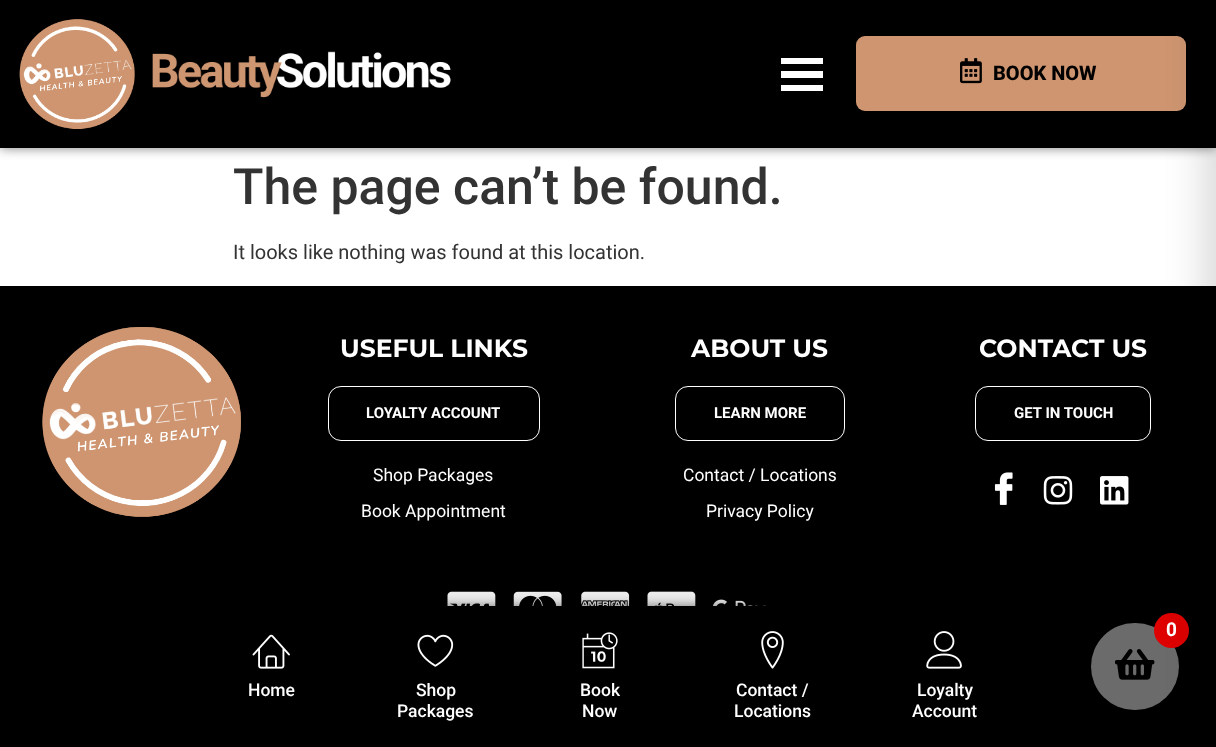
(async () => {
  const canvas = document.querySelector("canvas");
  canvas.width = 1216;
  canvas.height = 747;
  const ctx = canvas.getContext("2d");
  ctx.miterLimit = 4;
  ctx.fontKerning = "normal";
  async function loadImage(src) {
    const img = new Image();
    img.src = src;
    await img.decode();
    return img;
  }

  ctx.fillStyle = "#ffffff";
  ctx.fillRect(0, 0, 1216, 747);
  ctx.fillStyle = "rgba(0, 0, 0, 0.5)";
  ctx.filter = "blur(6px)";
  ctx.beginPath();
  ctx.rect(0, 0, 1216, 148);
  ctx.fill();
  ctx.filter = "none";
  ctx.fillStyle = "#000000";
  ctx.fillRect(0, 0, 1216, 148);
  ctx.drawImage(await loadImage("img/1.png"), 19, 19, 116, 110);
  ctx.drawImage(await loadImage("img/2.png"), 152, 51, 299, 47);
  for (const [x, y, w, h, color] of [
    [781, 58, 42, 6, "#ffffff"],
    [781, 71, 42, 7, "#ffffff"],
    [781, 85, 42, 6, "#ffffff"],
  ]) {
    ctx.fillStyle = color;
    ctx.fillRect(x, y, w, h);
  }
  ctx.fillStyle = "#ce9570";
  ctx.beginPath();
  ctx.roundRect(856, 36, 330, 75, 9);
  ctx.fill();
  ctx.drawImage(await loadImage("img/3.png"), 960, 58, 22, 26);
  ctx.fillStyle = "#000000";
  ctx.fillRect(0, 286, 1216, 320);
  ctx.beginPath();
  ctx.roundRect(975.5, 386.5, 175, 54, 12.5);
  ctx.strokeStyle = "#ffffff";
  ctx.stroke();
  ctx.drawImage(await loadImage("img/8.png"), 447, 591, 49, 15);
  ctx.drawImage(await loadImage("img/9.png"), 513, 591, 49, 15);
  ctx.drawImage(await loadImage("img/10.png"), 581, 591, 49, 15);
  ctx.drawImage(await loadImage("img/11.png"), 647, 591, 49, 15);
  ctx.drawImage(await loadImage("img/12.png"), 713, 599, 53, 7);
  ctx.fillStyle = "rgba(0, 0, 0, 0.53)";
  ctx.filter = "blur(6px)";
  ctx.beginPath();
  ctx.rect(0, 606, 1216, 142);
  ctx.fill();
  ctx.filter = "none";
  ctx.fillStyle = "#000000";
  ctx.fillRect(0, 606, 1216, 141);
  ctx.fillStyle = "#6b6b6b";
  ctx.beginPath();
  ctx.roundRect(1091, 623, 88, 87, 43.5);
  ctx.fill();
  ctx.fillStyle = "#df0000";
  ctx.beginPath();
  ctx.arc(1171.5, 630.5, 17.5, 0, Math.PI * 2);
  ctx.fill();
  ctx.drawImage(await loadImage("img/18.png"), 1115, 649, 40, 31);
  ctx.fillStyle = "rgba(0, 0, 0, 0.15)";
  ctx.filter = "blur(19px)";
  ctx.beginPath();
  ctx.rect(1204, 0, 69, 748);
  ctx.fill();
  ctx.filter = "none";
  ctx.drawImage(await loadImage("img/4.png"), 42, 327, 199, 190);
  ctx.beginPath();
  ctx.roundRect(328.5, 386.5, 211, 54, 12.5);
  ctx.stroke();
  ctx.beginPath();
  ctx.roundRect(675.5, 386.5, 169, 54, 12.5);
  ctx.stroke();
  ctx.drawImage(await loadImage("img/5.png"), 994, 472, 19, 33);
  ctx.drawImage(await loadImage("img/6.png"), 1043, 476, 30, 29);
  ctx.drawImage(await loadImage("img/7.png"), 1100, 476, 29, 29);
  ctx.drawImage(await loadImage("img/13.png"), 252, 634, 38, 35);
  ctx.drawImage(await loadImage("img/14.png"), 417, 634, 37, 33);
  ctx.drawImage(await loadImage("img/15.png"), 582, 632, 36, 37);
  ctx.drawImage(await loadImage("img/16.png"), 761, 631, 23, 38);
  ctx.drawImage(await loadImage("img/17.png"), 926, 631, 36, 38);
  ctx.font = "800 20px Roboto";
  ctx.fillStyle = "#000000";
  ctx.fillText("BOOK NOW", 993, 80);
  ctx.font = "500 50px Roboto";
  ctx.fillStyle = "#333333";
  ctx.fillText("The page can’t be found.", 233, 204);
  ctx.font = "20px Roboto";
  ctx.fillText("It looks like nothing was found at this location.", 233, 259);
  ctx.font = "bold 25px Montserrat";
  ctx.fillStyle = "#ffffff";
  ctx.fillText("USEFUL LINKS", 340, 357);
  ctx.font = "bold 15px Roboto";
  ctx.fillText("LOYALTY ACCOUNT", 366, 418);
  ctx.font = "17.5px Roboto";
  ctx.fillText("Shop Packages", 373, 481);
  ctx.fillText("Book Appointment", 361, 517);
  ctx.font = "bold 25px Montserrat";
  ctx.fillText("ABOUT US", 691, 357);
  ctx.font = "bold 15px Roboto";
  ctx.fillText("LEARN MORE", 714, 418);
  ctx.font = "17.5px Roboto";
  ctx.fillText("Contact / Locations", 683, 481);
  ctx.fillText("Privacy Policy", 706, 517);
  ctx.font = "bold 25px Montserrat";
  ctx.fillText("CONTACT US", 979, 357);
  ctx.font = "bold 15px Roboto";
  ctx.fillText("GET IN TOUCH", 1014, 418);
  ctx.font = "500 17.5px Roboto";
  for (const [text, x, y] of [
    ["Home", 248, 696],
    ["Shop", 416, 696],
    ["Packages", 397, 717],
    ["Book", 580, 696],
    ["Now", 582, 717],
    ["Contact /", 736, 696],
    ["Locations", 734, 717],
    ["Loyalty", 917, 696],
    ["Account", 912, 717],
  ]) {
    ctx.fillText(text, x, y);
  }
  ctx.font = "bold 19px Roboto";
  ctx.fillText("0", 1166, 636);
})();
